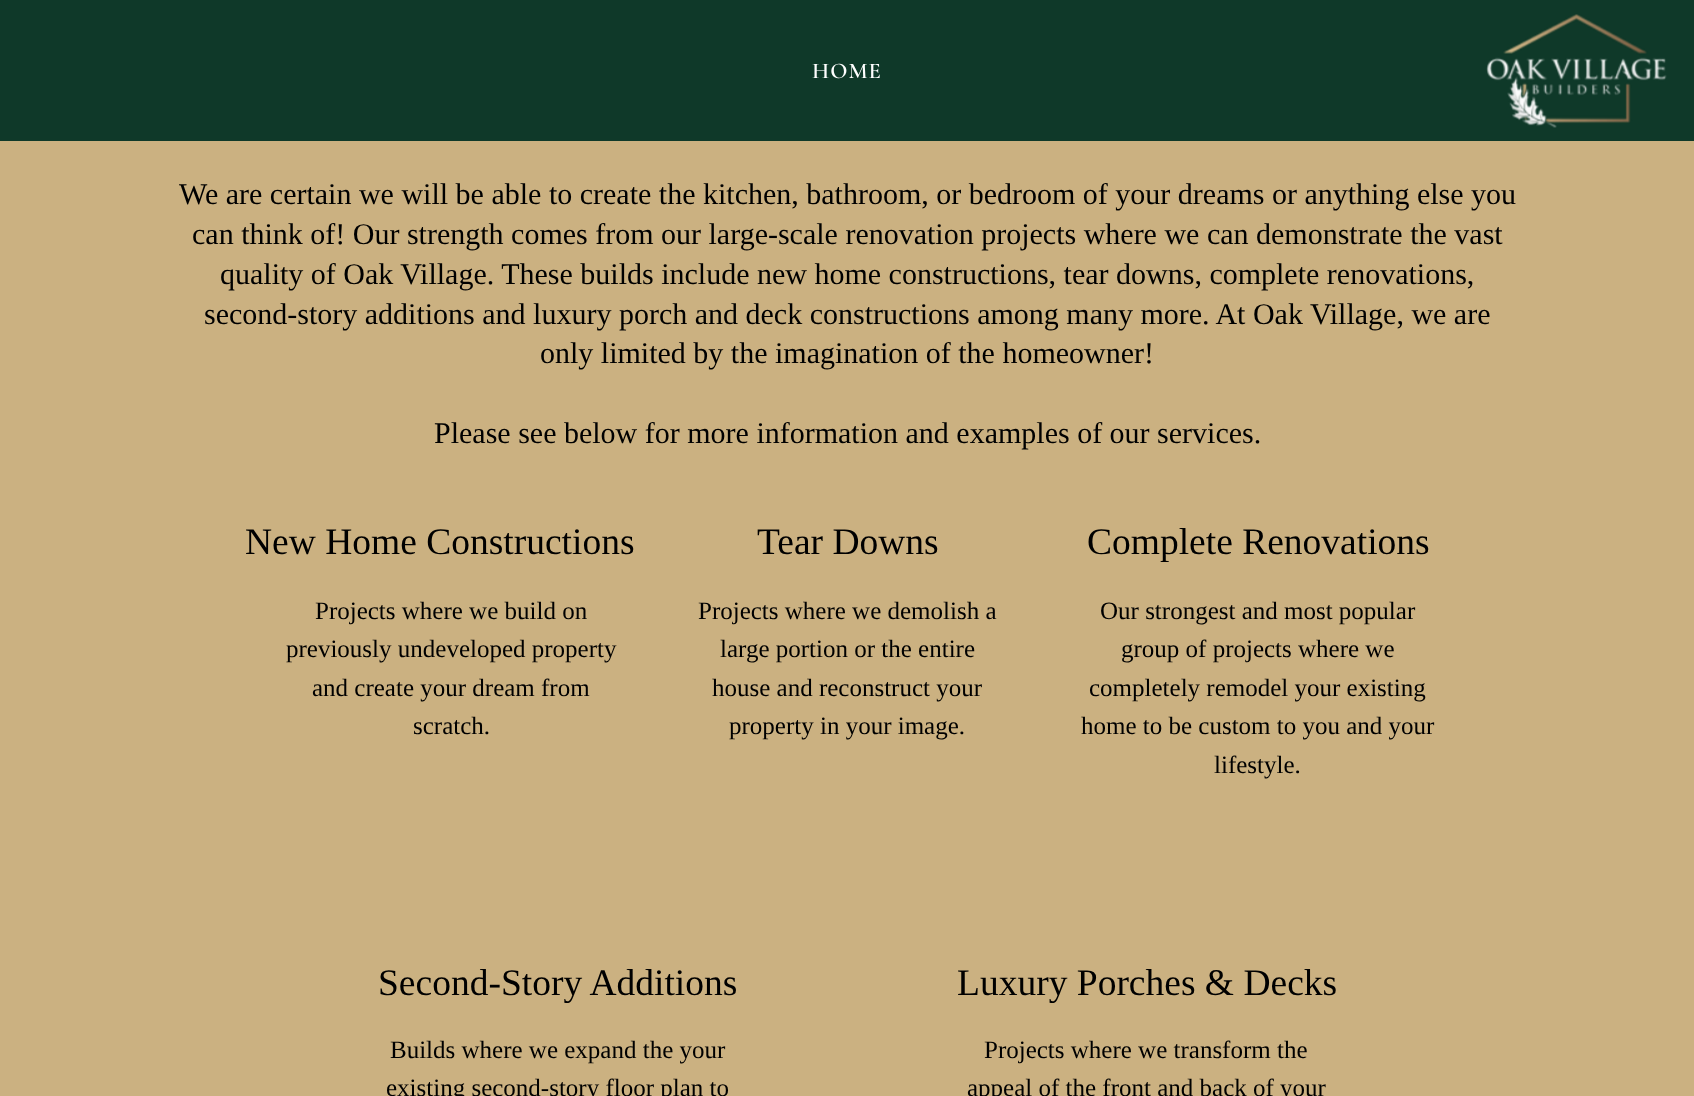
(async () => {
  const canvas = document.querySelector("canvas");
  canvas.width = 1694;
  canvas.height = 1096;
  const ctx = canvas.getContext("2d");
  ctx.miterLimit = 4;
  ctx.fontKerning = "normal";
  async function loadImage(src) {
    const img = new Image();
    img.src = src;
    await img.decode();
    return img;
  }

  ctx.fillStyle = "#cbb181";
  ctx.fillRect(0, 0, 1694, 1096);
  ctx.fillStyle = "#0f3929";
  ctx.fillRect(0, 0, 1694, 141);
  ctx.drawImage(await loadImage("img/1.png"), 1486, 14, 181, 114);
  ctx.letterSpacing = "1px";
  ctx.font = "600 22.5px Cormorant Garamond";
  ctx.fillStyle = "#ffffff";
  ctx.fillText("HOME", 812, 78);
  ctx.letterSpacing = "0px";
  ctx.font = "30px Liberation Serif";
  ctx.fillStyle = "#000000";
  for (const [text, x, y] of [
    ["We are certain we will be able to create the kitchen, bathroom, or bedroom of your dreams or anything else you", 179, 204],
    ["can think of! Our strength comes from our large-scale renovation projects where we can demonstrate the vast", 192, 244],
    ["quality of Oak Village. These builds include new home constructions, tear downs, complete renovations,", 220, 284],
    ["second-story additions and luxury porch and deck constructions among many more. At Oak Village, we are", 204, 324],
    ["only limited by the imagination of the homeowner!", 540, 363],
    ["Please see below for more information and examples of our services.", 434, 443],
  ]) {
    ctx.fillText(text, x, y);
  }
  ctx.font = "37.5px Liberation Serif";
  for (const [text, x, y] of [
    ["New Home Constructions", 245, 554],
    ["Tear Downs", 757, 554],
    ["Complete Renovations", 1087, 554],
  ]) {
    ctx.fillText(text, x, y);
  }
  ctx.font = "25px Liberation Serif";
  for (const [text, x, y] of [
    ["Projects where we build on", 315, 619],
    ["previously undeveloped property", 286, 657],
    ["and create your dream from", 312, 696],
    ["scratch.", 413, 734],
    ["Projects where we demolish a", 698, 619],
    ["large portion or the entire", 720, 657],
    ["house and reconstruct your", 712, 696],
    ["property in your image.", 729, 734],
    ["Our strongest and most popular", 1100, 619],
    ["group of projects where we", 1121, 657],
    ["completely remodel your existing", 1089, 696],
    ["home to be custom to you and your", 1081, 734],
    ["lifestyle.", 1214, 773],
  ]) {
    ctx.fillText(text, x, y);
  }
  ctx.font = "37.5px Liberation Serif";
  ctx.fillText("Second-Story Additions", 378, 995);
  ctx.fillText("Luxury Porches & Decks", 957, 995);
  ctx.font = "25px Liberation Serif";
  for (const [text, x, y] of [
    ["Builds where we expand the your", 390, 1058],
    ["existing second-story floor plan to", 386, 1096],
    ["Projects where we transform the", 984, 1058],
    ["appeal of the front and back of your", 967, 1096],
  ]) {
    ctx.fillText(text, x, y);
  }
})();
